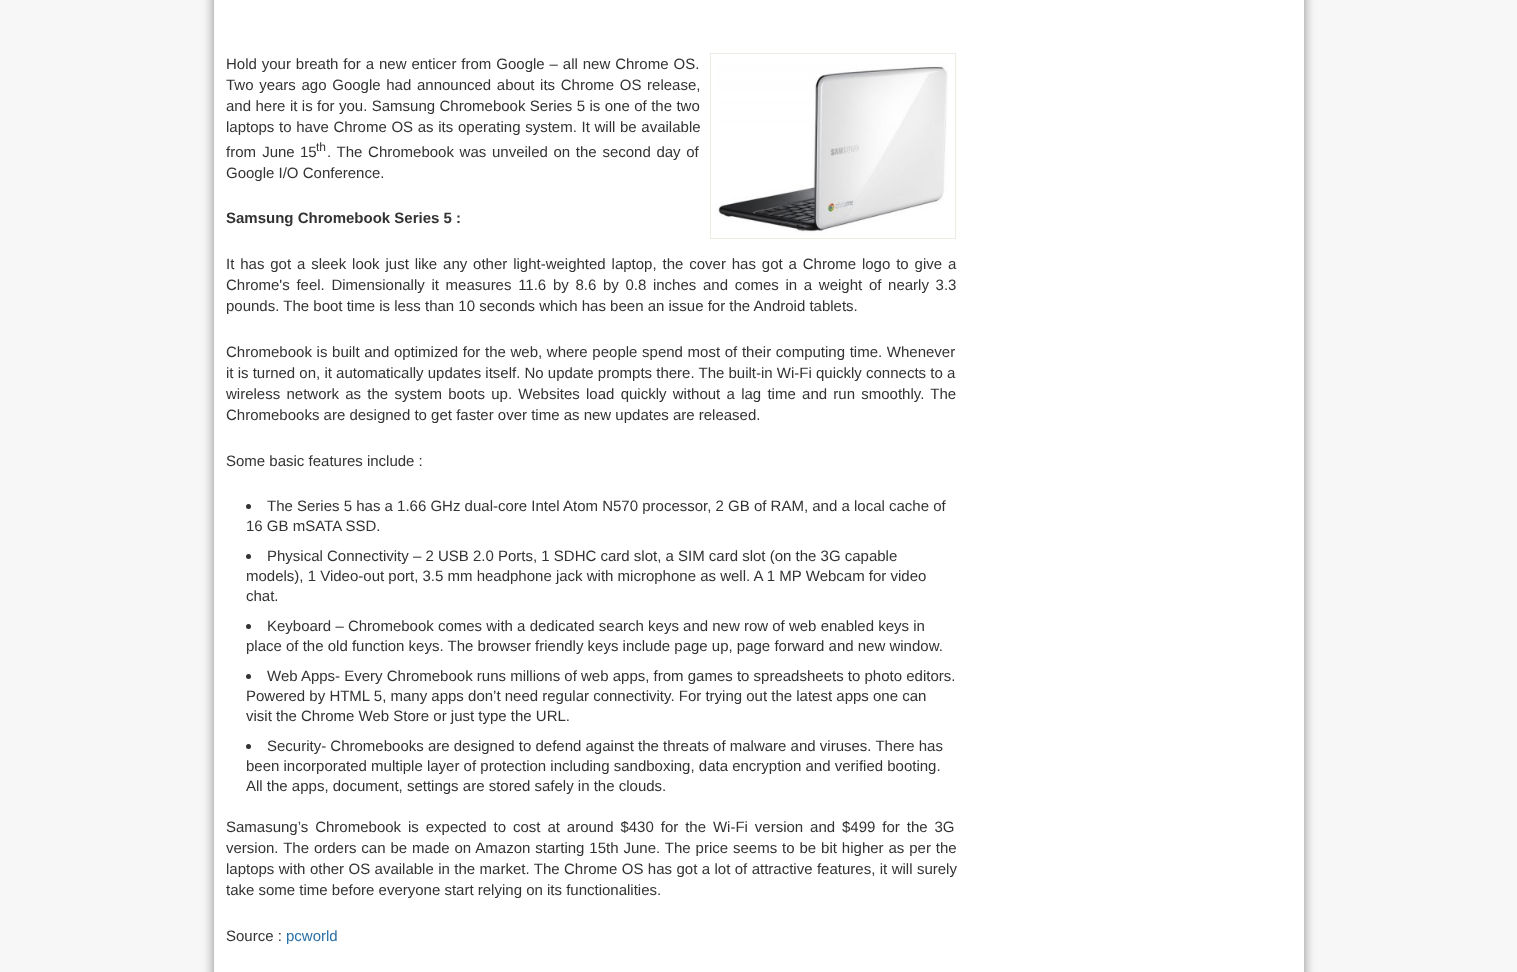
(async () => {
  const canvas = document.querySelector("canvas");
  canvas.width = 1517;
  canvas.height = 972;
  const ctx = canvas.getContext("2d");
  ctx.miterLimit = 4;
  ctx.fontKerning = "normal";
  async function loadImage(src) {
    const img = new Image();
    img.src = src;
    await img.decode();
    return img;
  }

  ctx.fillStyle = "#f7f7f7";
  ctx.fillRect(0, 0, 1517, 972);
  ctx.fillStyle = "#888888";
  ctx.filter = "blur(6px)";
  ctx.beginPath();
  ctx.roundRect(214, -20, 1090, 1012, 2);
  ctx.fill();
  ctx.filter = "none";
  ctx.fillStyle = "#ffffff";
  ctx.fillRect(214, 0, 1090, 972);
  ctx.strokeStyle = "#ebece4";
  ctx.strokeRect(710.5, 53.5, 245, 185);
  ctx.drawImage(await loadImage("img/1.png"), 716, 63, 232, 171);
  ctx.fillStyle = "#333333";
  ctx.beginPath();
  ctx.arc(248.5, 506.5, 2.5, 0, Math.PI * 2);
  ctx.fill();
  ctx.beginPath();
  ctx.arc(248.5, 556.5, 2.5, 0, Math.PI * 2);
  ctx.fill();
  ctx.beginPath();
  ctx.arc(248.5, 626.5, 2.5, 0, Math.PI * 2);
  ctx.fill();
  ctx.beginPath();
  ctx.arc(248.5, 676.5, 2.5, 0, Math.PI * 2);
  ctx.fill();
  ctx.beginPath();
  ctx.arc(248.5, 746.5, 2.5, 0, Math.PI * 2);
  ctx.fill();
  ctx.wordSpacing = "0.75px";
  ctx.font = "15px Liberation Sans";
  ctx.fillText("Hold your breath for a new enticer from Google – all new Chrome OS.", 226, 69);
  ctx.wordSpacing = "1.5px";
  ctx.fillText("Two years ago Google had announced about its Chrome OS release,", 226, 90);
  ctx.wordSpacing = "0.25px";
  ctx.fillText("and here it is for you. Samsung Chromebook Series 5 is one of the two", 226, 111);
  ctx.wordSpacing = "0.5px";
  ctx.fillText("laptops to have Chrome OS as its operating system. It will be available", 226, 132);
  ctx.wordSpacing = "2px";
  ctx.fillText("from June", 226, 157);
  ctx.wordSpacing = "0px";
  ctx.fillText("15", 300, 157);
  ctx.font = "12px Liberation Sans";
  ctx.fillText("th", 316, 151);
  ctx.wordSpacing = "1.5px";
  ctx.font = "15px Liberation Sans";
  ctx.fillText(". The Chromebook was unveiled on the second day of", 327, 157);
  ctx.wordSpacing = "0px";
  ctx.fillText("Google I/O Conference.", 226, 178);
  ctx.font = "bold 15px Liberation Sans";
  ctx.fillText("Samsung Chromebook Series 5 :", 226, 223);
  ctx.wordSpacing = "1.7px";
  ctx.font = "15px Liberation Sans";
  ctx.fillText("It has got a sleek look just like any other light-weighted laptop, the cover has got a Chrome logo to give a", 226, 269);
  ctx.wordSpacing = "2.5px";
  ctx.fillText("Chrome's feel. Dimensionally it measures 11.6 by 8.6 by 0.8 inches and comes in a weight of nearly 3.3", 226, 290);
  ctx.wordSpacing = "0px";
  ctx.fillText("pounds. The boot time is less than 10 seconds which has been an issue for the Android tablets.", 226, 311);
  ctx.wordSpacing = "0.5px";
  ctx.fillText("Chromebook is built and optimized for the web, where people spend most of their computing time. Whenever", 226, 357);
  ctx.wordSpacing = "0px";
  ctx.fillText("it is turned on, it automatically updates itself. No update prompts there. The built-in Wi-Fi quickly connects to a", 226, 378);
  ctx.wordSpacing = "2.1px";
  ctx.fillText("wireless network as the system boots up. Websites load quickly without a lag time and run smoothly. The", 226, 399);
  ctx.wordSpacing = "0px";
  for (const [text, x, y] of [
    ["Chromebooks are designed to get faster over time as new updates are released.", 226, 420],
    ["Some basic features include :", 226, 466],
    ["The Series 5 has a 1.66 GHz dual-core Intel Atom N570 processor, 2 GB of RAM, and a local cache of", 267, 511],
    ["16 GB mSATA SSD.", 246, 531],
    ["Physical Connectivity – 2 USB 2.0 Ports, 1 SDHC card slot, a SIM card slot (on the 3G capable", 267, 561],
    ["models), 1 Video-out port, 3.5 mm headphone jack with microphone as well. A 1 MP Webcam for video", 246, 581],
    ["chat.", 246, 601],
    ["Keyboard – Chromebook comes with a dedicated search keys and new row of web enabled keys in", 267, 631],
    ["place of the old function keys. The browser friendly keys include page up, page forward and new window.", 246, 651],
    ["Web Apps- Every Chromebook runs millions of web apps, from games to spreadsheets to photo editors.", 267, 681],
    ["Powered by HTML 5, many apps don’t need regular connectivity. For trying out the latest apps one can", 246, 701],
    ["visit the Chrome Web Store or just type the URL.", 246, 721],
    ["Security- Chromebooks are designed to defend against the threats of malware and viruses. There has", 267, 751],
    ["been incorporated multiple layer of protection including sandboxing, data encryption and verified booting.", 246, 771],
    ["All the apps, document, settings are stored safely in the clouds.", 246, 791],
  ]) {
    ctx.fillText(text, x, y);
  }
  ctx.wordSpacing = "2.75px";
  ctx.fillText("Samasung’s Chromebook is expected to cost at around $430 for the Wi-Fi version and $499 for the 3G", 226, 832);
  ctx.wordSpacing = "0.75px";
  ctx.fillText("version. The orders can be made on Amazon starting 15th June. The price seems to be bit higher as per the", 226, 853);
  ctx.wordSpacing = "0.25px";
  ctx.fillText("laptops with other OS available in the market. The Chrome OS has got a lot of attractive features, it will surely", 226, 874);
  ctx.wordSpacing = "0px";
  ctx.fillText("take some time before everyone start relying on its functionalities.", 226, 895);
  ctx.fillText("Source :", 226, 941);
  ctx.fillStyle = "#2970a6";
  ctx.fillText("pcworld", 286, 941);
})();
